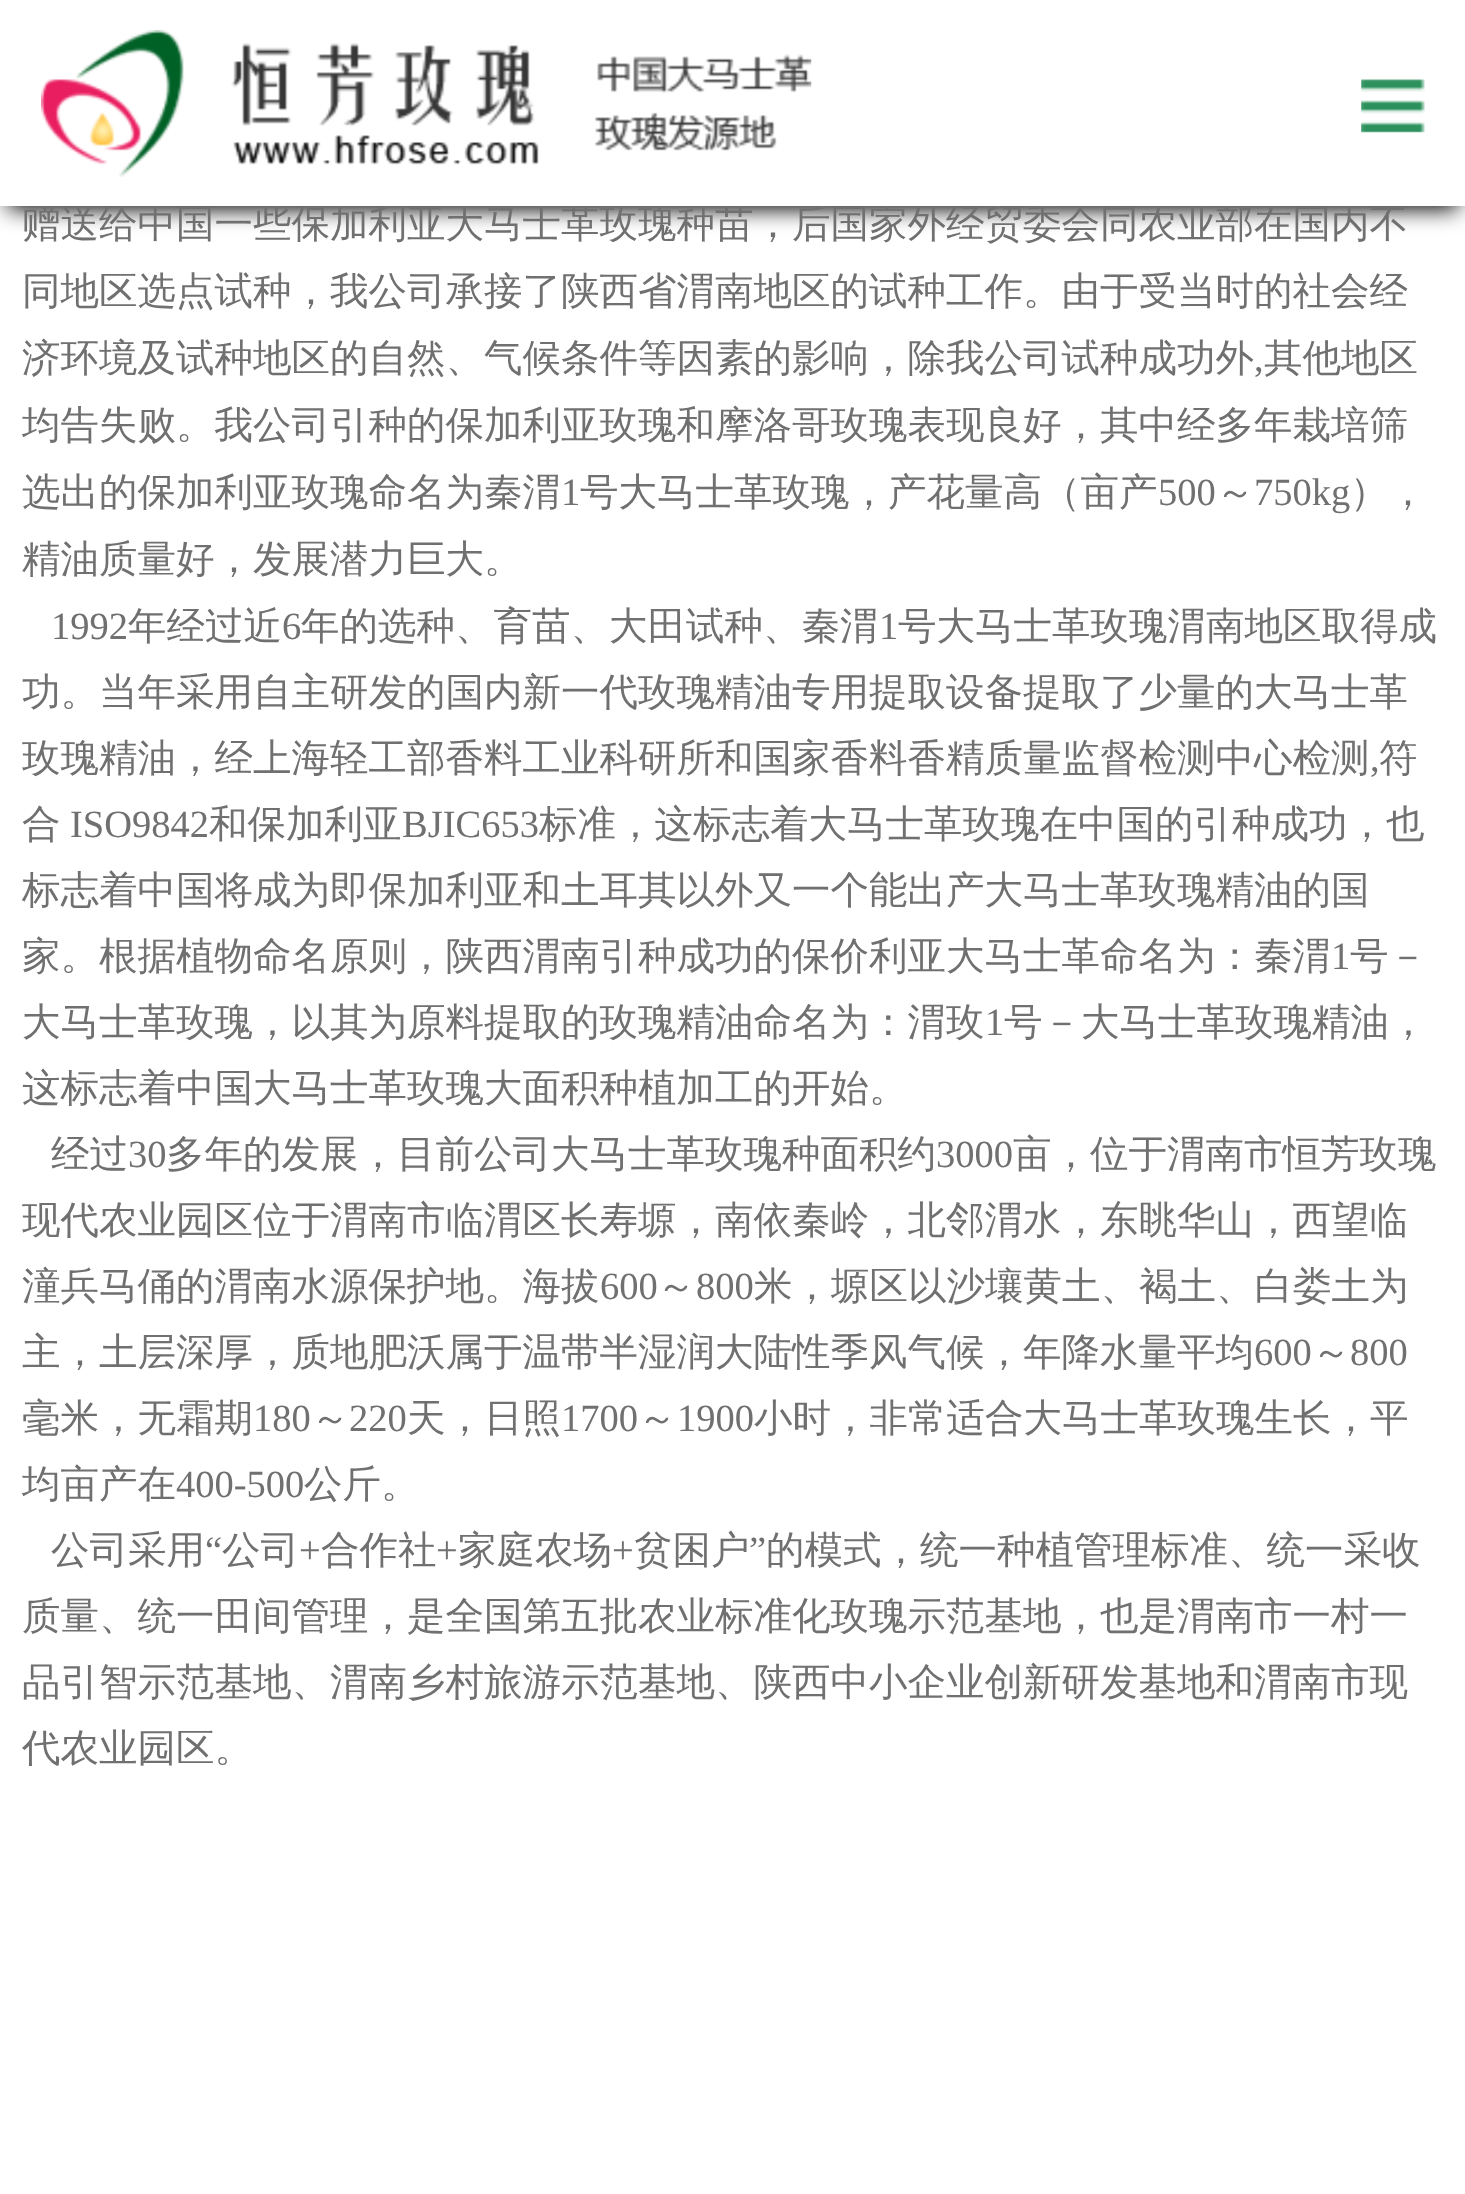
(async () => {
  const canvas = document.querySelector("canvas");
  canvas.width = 1465;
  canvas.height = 2194;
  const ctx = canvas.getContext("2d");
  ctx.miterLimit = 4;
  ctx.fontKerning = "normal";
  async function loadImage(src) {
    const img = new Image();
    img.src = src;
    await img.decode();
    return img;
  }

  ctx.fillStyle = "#ffffff";
  ctx.fillRect(0, 0, 1465, 2194);
  ctx.fillStyle = "#000000";
  ctx.filter = "blur(11px)";
  ctx.beginPath();
  ctx.rect(8, 19, 1450, 190);
  ctx.fill();
  ctx.filter = "none";
  ctx.font = "500 38.5px WenQuanYi Zen Hei";
  ctx.fillStyle = "#707070";
  ctx.fillText("赠送给中国一些保加利亚大马士革玫瑰种苗，后国家外经贸委会同农业部在国内不", 22, 237);
  ctx.fillStyle = "#ffffff";
  ctx.fillRect(0, 0, 1465, 206);
  ctx.drawImage(await loadImage("img/2.png"), 1361, 79, 64, 54);
  ctx.drawImage(await loadImage("img/1.png"), 41, 30, 771, 147);
  ctx.fillStyle = "#707070";
  ctx.fillText("同地区选点试种，我公司承接了陕西省渭南地区的试种工作。由于受当时的社会经", 22, 304);
  ctx.fillText("济环境及试种地区的自然、气候条件等因素的影响，除我公司试种成功外", 22, 371);
  ctx.font = "38.5px Liberation Serif";
  ctx.fillText(",", 1254, 371);
  ctx.font = "500 38.5px WenQuanYi Zen Hei";
  for (const [text, x, y] of [
    ["其他地区", 1264, 371],
    ["均告失败。我公司引种的保加利亚玫瑰和摩洛哥玫瑰表现良好，其中经多年栽培筛", 22, 438],
    ["选出的保加利亚玫瑰命名为秦渭", 22, 505],
  ]) {
    ctx.fillText(text, x, y);
  }
  ctx.font = "38.5px Liberation Serif";
  ctx.fillText("1", 561, 505);
  ctx.font = "500 38.5px WenQuanYi Zen Hei";
  ctx.fillText("号大马士革玫瑰，产花量高（亩产", 580, 505);
  ctx.font = "38.5px Liberation Serif";
  ctx.fillText("500", 1158, 505);
  ctx.font = "500 38.5px WenQuanYi Zen Hei";
  ctx.fillText("～", 1216, 505);
  ctx.font = "38.5px Liberation Serif";
  ctx.fillText("750kg", 1254, 505);
  ctx.font = "500 38.5px WenQuanYi Zen Hei";
  ctx.fillText("），", 1350, 505);
  ctx.fillText("精油质量好，发展潜力巨大。", 22, 572);
  ctx.font = "38.5px Liberation Serif";
  ctx.fillText("1992", 51, 639);
  ctx.font = "500 38.5px WenQuanYi Zen Hei";
  ctx.fillText("年经过近", 128, 639);
  ctx.font = "38.5px Liberation Serif";
  ctx.fillText("6", 282, 639);
  ctx.font = "500 38.5px WenQuanYi Zen Hei";
  ctx.fillText("年的选种、育苗、大田试种、秦渭", 301, 639);
  ctx.font = "38.5px Liberation Serif";
  ctx.fillText("1", 879, 639);
  ctx.font = "500 38.5px WenQuanYi Zen Hei";
  for (const [text, x, y] of [
    ["号大马士革玫瑰渭南地区取得成", 898, 639],
    ["功。当年采用自主研发的国内新一代玫瑰精油专用提取设备提取了少量的大马士革", 22, 705],
    ["玫瑰精油，经上海轻工部香料工业科研所和国家香料香精质量监督检测中心检测", 22, 771],
  ]) {
    ctx.fillText(text, x, y);
  }
  ctx.font = "38.5px Liberation Serif";
  ctx.fillText(",", 1370, 771);
  ctx.font = "500 38.5px WenQuanYi Zen Hei";
  ctx.fillText("符", 1379, 771);
  ctx.fillText("合", 22, 837);
  ctx.font = "38.5px Liberation Serif";
  ctx.fillText("ISO9842", 70, 837);
  ctx.font = "500 38.5px WenQuanYi Zen Hei";
  ctx.fillText("和保加利亚", 209, 837);
  ctx.font = "38.5px Liberation Serif";
  ctx.fillText("BJIC653", 402, 837);
  ctx.font = "500 38.5px WenQuanYi Zen Hei";
  for (const [text, x, y] of [
    ["标准，这标志着大马士革玫瑰在中国的引种成功，也", 539, 837],
    ["标志着中国将成为即保加利亚和土耳其以外又一个能出产大马士革玫瑰精油的国", 22, 903],
    ["家。根据植物命名原则，陕西渭南引种成功的保价利亚大马士革命名为：秦渭", 22, 969],
  ]) {
    ctx.fillText(text, x, y);
  }
  ctx.font = "38.5px Liberation Serif";
  ctx.fillText("1", 1331, 969);
  ctx.font = "500 38.5px WenQuanYi Zen Hei";
  ctx.fillText("号－", 1350, 969);
  ctx.fillText("大马士革玫瑰，以其为原料提取的玫瑰精油命名为：渭玫", 22, 1035);
  ctx.font = "38.5px Liberation Serif";
  ctx.fillText("1", 985, 1035);
  ctx.font = "500 38.5px WenQuanYi Zen Hei";
  for (const [text, x, y] of [
    ["号－大马士革玫瑰精油，", 1004, 1035],
    ["这标志着中国大马士革玫瑰大面积种植加工的开始。", 22, 1101],
    ["经过", 51, 1167],
  ]) {
    ctx.fillText(text, x, y);
  }
  ctx.font = "38.5px Liberation Serif";
  ctx.fillText("30", 128, 1167);
  ctx.font = "500 38.5px WenQuanYi Zen Hei";
  ctx.fillText("多年的发展，目前公司大马士革玫瑰种面积约", 166, 1167);
  ctx.font = "38.5px Liberation Serif";
  ctx.fillText("3000", 936, 1167);
  ctx.font = "500 38.5px WenQuanYi Zen Hei";
  for (const [text, x, y] of [
    ["亩，位于渭南市恒芳玫瑰", 1013, 1167],
    ["现代农业园区位于渭南市临渭区长寿塬，南依秦岭，北邻渭水，东眺华山，西望临", 22, 1233],
    ["潼兵马俑的渭南水源保护地。海拔", 22, 1299],
  ]) {
    ctx.fillText(text, x, y);
  }
  ctx.font = "38.5px Liberation Serif";
  ctx.fillText("600", 600, 1299);
  ctx.font = "500 38.5px WenQuanYi Zen Hei";
  ctx.fillText("～", 657, 1299);
  ctx.font = "38.5px Liberation Serif";
  ctx.fillText("800", 696, 1299);
  ctx.font = "500 38.5px WenQuanYi Zen Hei";
  ctx.fillText("米，塬区以沙壤黄土、褐土、白娄土为", 754, 1299);
  ctx.fillText("主，土层深厚，质地肥沃属于温带半湿润大陆性季风气候，年降水量平均", 22, 1365);
  ctx.font = "38.5px Liberation Serif";
  ctx.fillText("600", 1254, 1365);
  ctx.font = "500 38.5px WenQuanYi Zen Hei";
  ctx.fillText("～", 1312, 1365);
  ctx.font = "38.5px Liberation Serif";
  ctx.fillText("800", 1350, 1365);
  ctx.font = "500 38.5px WenQuanYi Zen Hei";
  ctx.fillText("毫米，无霜期", 22, 1431);
  ctx.font = "38.5px Liberation Serif";
  ctx.fillText("180", 253, 1431);
  ctx.font = "500 38.5px WenQuanYi Zen Hei";
  ctx.fillText("～", 311, 1431);
  ctx.font = "38.5px Liberation Serif";
  ctx.fillText("220", 349, 1431);
  ctx.font = "500 38.5px WenQuanYi Zen Hei";
  ctx.fillText("天，日照", 407, 1431);
  ctx.font = "38.5px Liberation Serif";
  ctx.fillText("1700", 561, 1431);
  ctx.font = "500 38.5px WenQuanYi Zen Hei";
  ctx.fillText("～", 638, 1431);
  ctx.font = "38.5px Liberation Serif";
  ctx.fillText("1900", 677, 1431);
  ctx.font = "500 38.5px WenQuanYi Zen Hei";
  ctx.fillText("小时，非常适合大马士革玫瑰生长，平", 754, 1431);
  ctx.fillText("均亩产在", 22, 1497);
  ctx.font = "38.5px Liberation Serif";
  ctx.fillText("400-500", 176, 1497);
  ctx.font = "500 38.5px WenQuanYi Zen Hei";
  ctx.fillText("公斤。", 304, 1497);
  ctx.fillText("公司采用", 51, 1563);
  ctx.font = "38.5px Liberation Serif";
  ctx.fillText("“", 205, 1563);
  ctx.font = "500 38.5px WenQuanYi Zen Hei";
  ctx.fillText("公司", 222, 1563);
  ctx.font = "38.5px Liberation Serif";
  ctx.fillText("+", 299, 1563);
  ctx.font = "500 38.5px WenQuanYi Zen Hei";
  ctx.fillText("合作社", 321, 1563);
  ctx.font = "38.5px Liberation Serif";
  ctx.fillText("+", 436, 1563);
  ctx.font = "500 38.5px WenQuanYi Zen Hei";
  ctx.fillText("家庭农场", 458, 1563);
  ctx.font = "38.5px Liberation Serif";
  ctx.fillText("+", 612, 1563);
  ctx.font = "500 38.5px WenQuanYi Zen Hei";
  ctx.fillText("贫困户", 634, 1563);
  ctx.font = "38.5px Liberation Serif";
  ctx.fillText("”", 749, 1563);
  ctx.font = "500 38.5px WenQuanYi Zen Hei";
  for (const [text, x, y] of [
    ["的模式，统一种植管理标准、统一采收", 766, 1563],
    ["质量、统一田间管理，是全国第五批农业标准化玫瑰示范基地，也是渭南市一村一", 22, 1629],
    ["品引智示范基地、渭南乡村旅游示范基地、陕西中小企业创新研发基地和渭南市现", 22, 1695],
    ["代农业园区。", 22, 1761],
  ]) {
    ctx.fillText(text, x, y);
  }
})();
